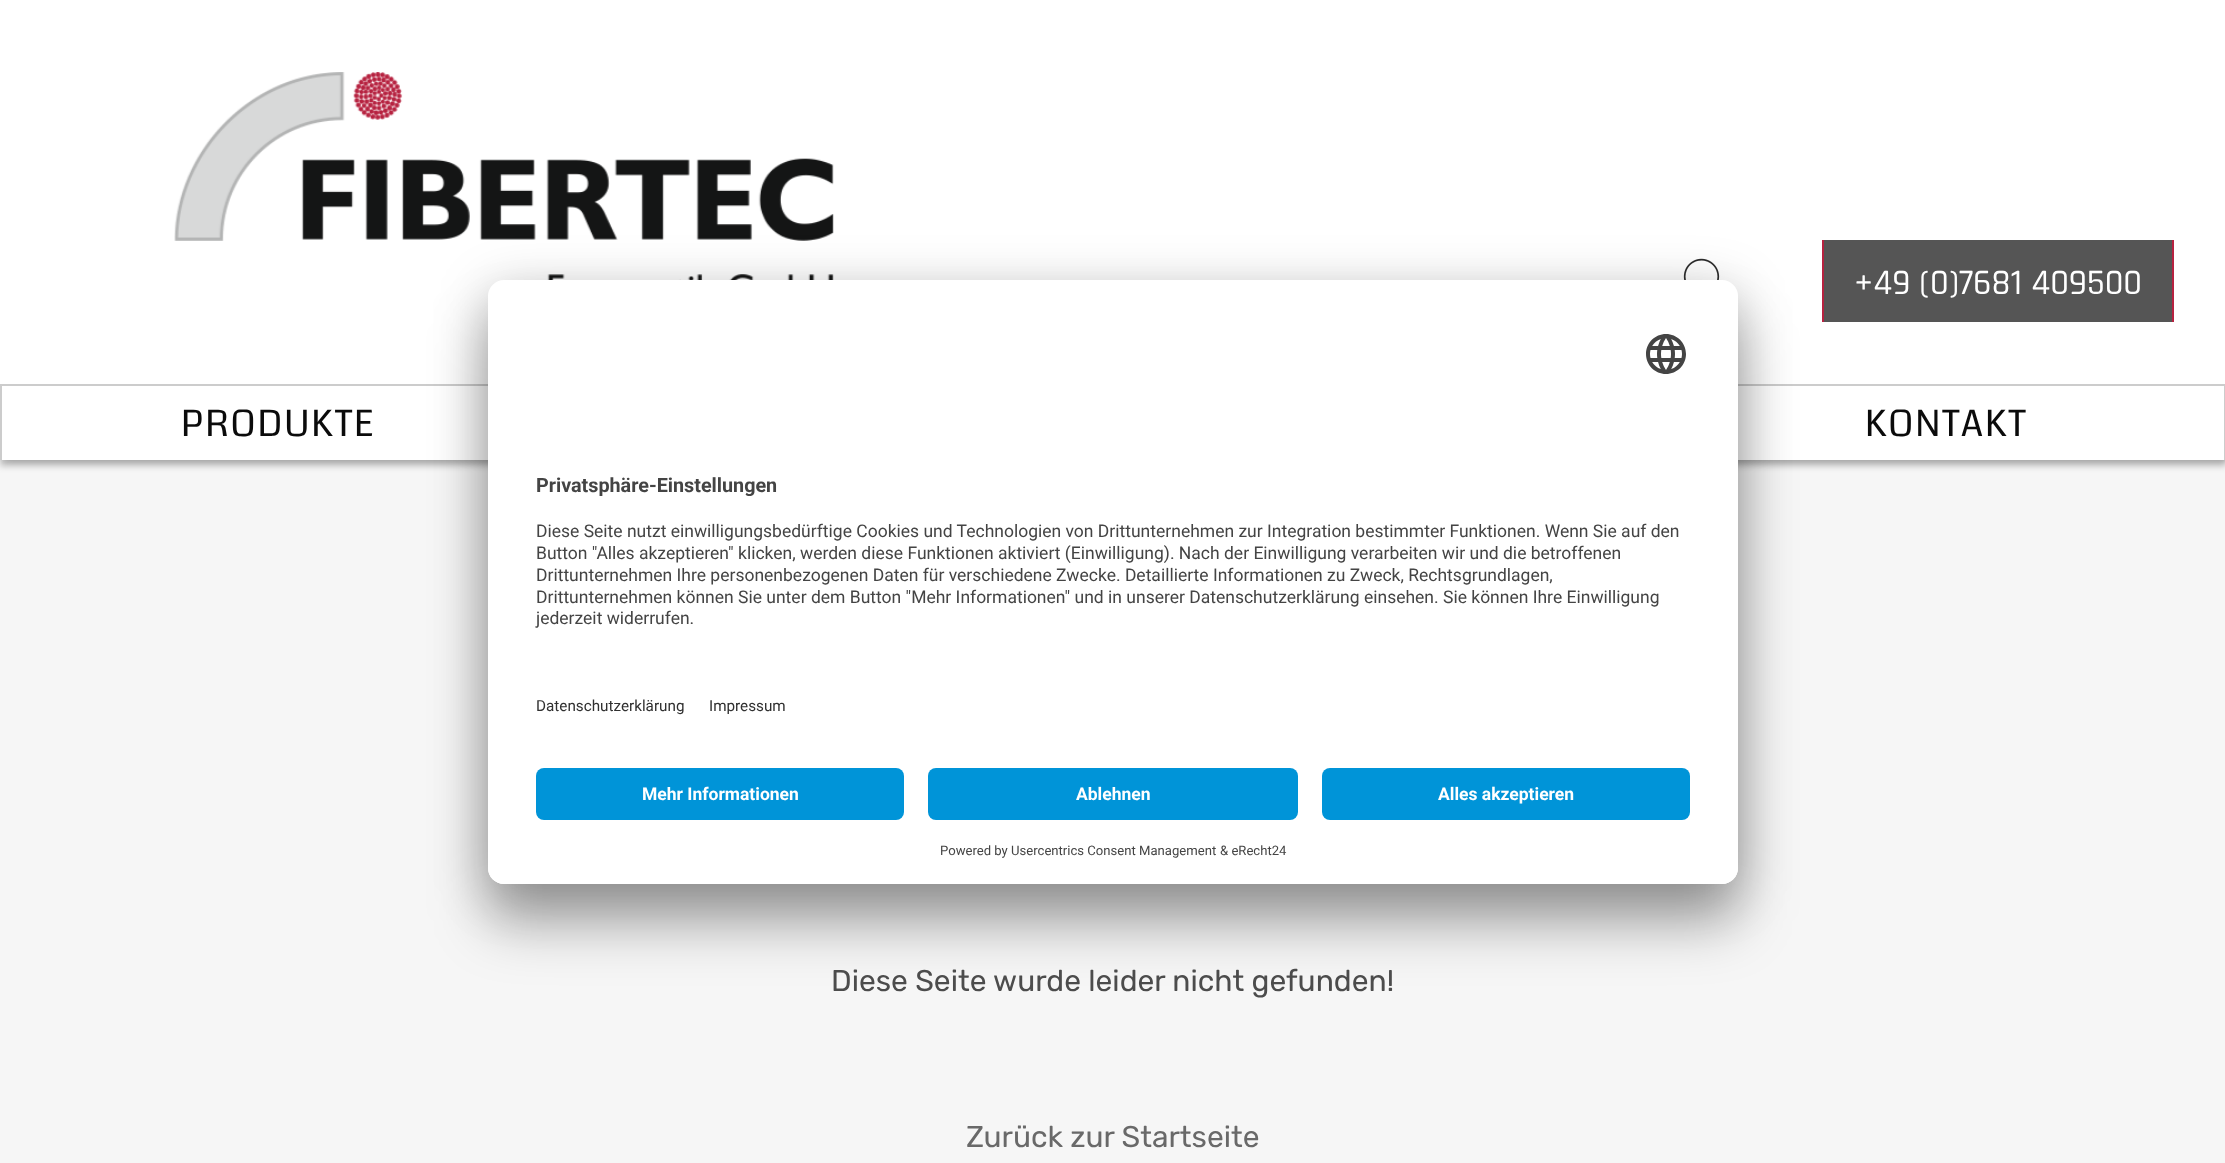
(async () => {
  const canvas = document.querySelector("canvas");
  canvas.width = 2225;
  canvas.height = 1163;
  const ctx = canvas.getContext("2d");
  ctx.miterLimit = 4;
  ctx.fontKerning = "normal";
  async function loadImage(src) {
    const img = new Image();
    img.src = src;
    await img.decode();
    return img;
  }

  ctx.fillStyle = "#f6f6f6";
  ctx.fillRect(0, 0, 2225, 1163);
  ctx.fillStyle = "rgba(0, 0, 0, 0.23)";
  ctx.filter = "blur(3px)";
  ctx.beginPath();
  ctx.rect(0, 6, 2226, 460);
  ctx.fill();
  ctx.filter = "none";
  ctx.fillStyle = "rgba(0, 0, 0, 0.19)";
  ctx.filter = "blur(3px)";
  ctx.beginPath();
  ctx.rect(6, 0, 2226, 460);
  ctx.fill();
  ctx.filter = "none";
  ctx.fillStyle = "#ffffff";
  ctx.fillRect(0, 0, 2225, 460);
  ctx.drawImage(await loadImage("img/1.png"), 174, 72, 660, 208);
  ctx.fillStyle = "#cccccc";
  ctx.fillRect(0, 384, 2225, 2);
  ctx.drawImage(await loadImage("img/2.png"), 1683, 258, 37, 22);
  for (const [x, y, w, h, color] of [
    [2172, 240, 2, 82, "#b62240"],
    [1822, 240, 2, 82, "#b62240"],
    [1824, 240, 348, 82, "#555555"],
    [0, 386, 2, 74, "#cccccc"],
    [2224, 386, 1, 74, "#cccccc"],
  ]) {
    ctx.fillStyle = color;
    ctx.fillRect(x, y, w, h);
  }
  ctx.fillStyle = "rgba(0, 0, 0, 0.3)";
  ctx.filter = "blur(28px)";
  ctx.beginPath();
  ctx.roundRect(488, 320, 1250, 604, 16);
  ctx.fill();
  ctx.filter = "none";
  ctx.fillStyle = "rgba(0, 0, 0, 0.22)";
  ctx.filter = "blur(26px)";
  ctx.beginPath();
  ctx.roundRect(488, 290, 1250, 604, 16);
  ctx.fill();
  ctx.filter = "none";
  ctx.fillStyle = "#ffffff";
  ctx.beginPath();
  ctx.roundRect(488, 280, 1250, 604, 16);
  ctx.fill();
  ctx.drawImage(await loadImage("img/3.png"), 1646, 334, 40, 40);
  ctx.beginPath();
  ctx.roundRect(488, 752, 1250, 132, [0, 0, 16, 16]);
  ctx.fill();
  ctx.fillStyle = "#0094d8";
  ctx.beginPath();
  ctx.roundRect(536, 768, 368, 52, 8);
  ctx.fill();
  ctx.beginPath();
  ctx.roundRect(928, 768, 370, 52, 8);
  ctx.fill();
  ctx.beginPath();
  ctx.roundRect(1322, 768, 368, 52, 8);
  ctx.fill();
  ctx.font = "500 36px Rajdhani";
  ctx.fillStyle = "#ffffff";
  ctx.fillText("+49 (0)7681 409500", 1854, 294);
  ctx.letterSpacing = "2px";
  ctx.font = "36px Coda";
  ctx.fillStyle = "#0b0b0b";
  ctx.fillText("PRODUKTE", 181, 436);
  ctx.fillText("KONTAKT", 1865, 436);
  ctx.letterSpacing = "0px";
  ctx.font = "bold 19.75px Roboto";
  ctx.fillStyle = "#444444";
  ctx.fillText("Privatsphäre-Einstellungen", 536, 492);
  ctx.font = "17.5px Roboto";
  for (const [text, x, y] of [
    ["Diese Seite nutzt einwilligungsbedürftige Cookies und Technologien von Drittunternehmen zur Integration bestimmter Funktionen. Wenn Sie auf den", 536, 537],
    ["Button \"Alles akzeptieren\" klicken, werden diese Funktionen aktiviert (Einwilligung). Nach der Einwilligung verarbeiten wir und die betroffenen", 536, 559],
    ["Drittunternehmen Ihre personenbezogenen Daten für verschiedene Zwecke. Detaillierte Informationen zu Zweck, Rechtsgrundlagen,", 536, 581],
    ["Drittunternehmen können Sie unter dem Button \"Mehr Informationen\" und in unserer Datenschutzerklärung einsehen. Sie können Ihre Einwilligung", 536, 603],
    ["jederzeit widerrufen.", 536, 624],
  ]) {
    ctx.fillText(text, x, y);
  }
  ctx.font = "15.25px Roboto";
  ctx.fillStyle = "#303030";
  ctx.fillText("Datenschutzerklärung", 536, 711);
  ctx.fillText("Impressum", 709, 711);
  ctx.font = "bold 17.5px Roboto";
  ctx.fillStyle = "#ffffff";
  for (const [text, x, y] of [
    ["Mehr Informationen", 642, 800],
    ["Ablehnen", 1076, 800],
    ["Alles akzeptieren", 1438, 800],
  ]) {
    ctx.fillText(text, x, y);
  }
  ctx.font = "13.1px Roboto";
  ctx.fillStyle = "#444444";
  ctx.fillText("Powered by Usercentrics Consent Management", 940, 855);
  ctx.fillText("& eRecht24", 1220, 855);
  ctx.font = "300 30px Rubik";
  ctx.fillStyle = "#4c4c4c";
  ctx.fillText("Diese Seite wurde leider nicht gefunden!", 831, 991);
  ctx.fillStyle = "#696969";
  ctx.fillText("Zurück zur Startseite", 966, 1147);
})();
